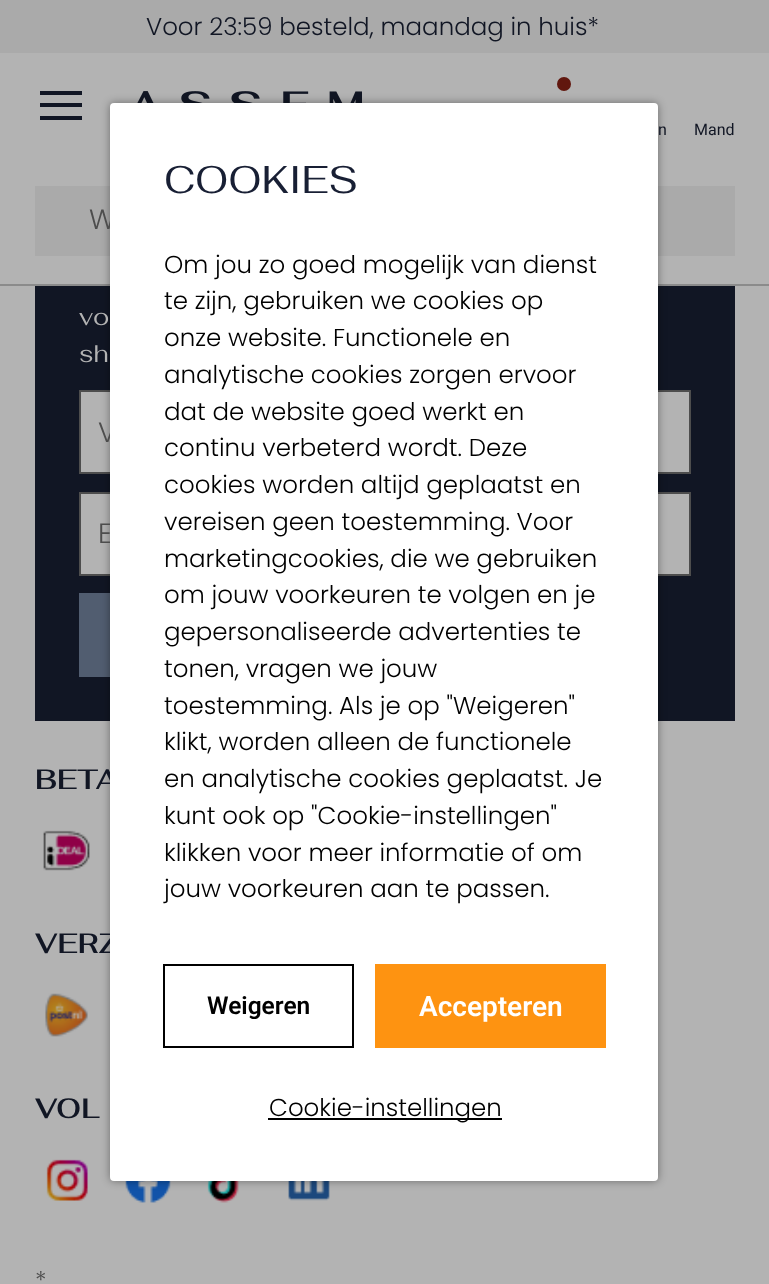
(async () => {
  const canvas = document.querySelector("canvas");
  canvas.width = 769;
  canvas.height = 1284;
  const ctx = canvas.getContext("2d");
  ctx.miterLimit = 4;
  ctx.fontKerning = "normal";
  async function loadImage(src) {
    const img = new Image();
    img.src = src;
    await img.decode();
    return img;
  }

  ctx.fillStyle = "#b3b3b3";
  ctx.fillRect(0, 0, 769, 1284);
  ctx.fillStyle = "#111624";
  ctx.fillRect(35, 286, 700, 435);
  ctx.fillStyle = "#b3b3b3";
  ctx.fillRect(81, 392, 29, 80);
  ctx.strokeStyle = "#4d4d4d";
  ctx.lineWidth = 2;
  ctx.strokeRect(80, 391, 295, 82);
  ctx.fillRect(658, 392, 31, 80);
  ctx.strokeRect(395, 391, 295, 82);
  ctx.beginPath();
  ctx.rect(80, 493, 610, 82);
  ctx.fill();
  ctx.stroke();
  ctx.fillStyle = "#515d70";
  ctx.fillRect(79, 593, 31, 84);
  ctx.drawImage(await loadImage("img/1.png"), 43, 830, 47, 41);
  ctx.drawImage(await loadImage("img/2.png"), 45, 993, 43, 44);
  ctx.drawImage(await loadImage("img/3.png"), 46, 1159, 42, 42);
  ctx.drawImage(await loadImage("img/4.png"), 125, 1181, 46, 22);
  ctx.drawImage(await loadImage("img/5.png"), 207, 1181, 42, 22);
  ctx.drawImage(await loadImage("img/6.png"), 288, 1181, 42, 20);
  for (const [x, y, w, h, color] of [
    [0, 0, 769, 53, "#aaaaaa"],
    [0, 284, 769, 2, "#8b8b8b"],
    [35, 186, 700, 70, "#aaaaaa"],
    [40, 91, 42, 4, "#111624"],
    [40, 103, 42, 4, "#111624"],
    [40, 116, 42, 4, "#111624"],
  ]) {
    ctx.fillStyle = color;
    ctx.fillRect(x, y, w, h);
  }
  ctx.drawImage(await loadImage("img/7.png"), 137, 91, 225, 12);
  ctx.fillStyle = "#61170e";
  ctx.beginPath();
  ctx.arc(564, 84, 7, 0, Math.PI * 2);
  ctx.fill();
  ctx.fillStyle = "rgba(0, 0, 0, 0.4)";
  ctx.filter = "blur(4.5px)";
  ctx.beginPath();
  ctx.roundRect(110, 103, 548, 1078, 4);
  ctx.fill();
  ctx.filter = "none";
  ctx.font = "24.5px Fahkwang";
  ctx.fillStyle = "#b3b3b3";
  ctx.fillText("vo", 79, 325);
  ctx.fillText("sh", 79, 362);
  ctx.font = "300 28px Poppins";
  ctx.fillStyle = "#4d4d4d";
  ctx.fillText("V", 98, 442);
  ctx.fillText("E", 98, 543);
  ctx.font = "600 28px Fahkwang";
  ctx.fillStyle = "#111624";
  for (const [text, x, y] of [
    ["BETA", 35, 789],
    ["VERZ", 35, 953],
    ["VOL", 35, 1118],
  ]) {
    ctx.fillText(text, x, y);
  }
  ctx.font = "300 24.5px Poppins";
  ctx.fillStyle = "#4d4d4d";
  ctx.fillText("*", 35, 1289);
  ctx.fillStyle = "#111624";
  ctx.fillText("Voor 23:59 besteld, maandag in huis*", 146, 35);
  ctx.font = "300 28px Poppins";
  ctx.fillStyle = "#4d4d4d";
  ctx.fillText("W", 89, 229);
  ctx.font = "16px Roboto";
  ctx.fillStyle = "#111624";
  ctx.fillText("n", 658, 135);
  ctx.fillText("Mand", 694, 135);
  ctx.fillStyle = "#ffffff";
  ctx.beginPath();
  ctx.roundRect(110, 103, 548, 1078, 4);
  ctx.fill();
  ctx.font = "38.5px Fahkwang";
  ctx.fillStyle = "#181f34";
  ctx.fillText("COOKIES", 164, 193);
  ctx.font = "300 24.5px Poppins";
  ctx.fillStyle = "#000000";
  for (const [text, x, y] of [
    ["Om jou zo goed mogelijk van dienst", 164, 273],
    ["te zijn, gebruiken we cookies op", 164, 309],
    ["onze website. Functionele en", 164, 346],
    ["analytische cookies zorgen ervoor", 164, 383],
    ["dat de website goed werkt en", 164, 420],
    ["continu verbeterd wordt. Deze", 164, 456],
    ["cookies worden altijd geplaatst en", 164, 493],
    ["vereisen geen toestemming. Voor", 164, 530],
    ["marketingcookies, die we gebruiken", 164, 567],
    ["om jouw voorkeuren te volgen en je", 164, 603],
    ["gepersonaliseerde advertenties te", 164, 640],
    ["tonen, vragen we jouw", 164, 677],
    ["toestemming. Als je op \"Weigeren\"", 164, 714],
    ["klikt, worden alleen de functionele", 164, 750],
    ["en analytische cookies geplaatst. Je", 164, 787],
    ["kunt ook op \"Cookie-instellingen\"", 164, 824],
    ["klikken voor meer informatie of om", 164, 861],
    ["jouw voorkeuren aan te passen.", 164, 897],
  ]) {
    ctx.fillText(text, x, y);
  }
  ctx.strokeStyle = "#000000";
  ctx.strokeRect(164, 965, 189, 82);
  ctx.font = "600 24.5px Roboto";
  ctx.fillText("Weigeren", 207, 1014);
  ctx.fillStyle = "#fe9311";
  ctx.fillRect(375, 964, 231, 84);
  ctx.font = "600 28px Roboto";
  ctx.fillStyle = "#ffffff";
  ctx.fillText("Accepteren", 419, 1016);
  ctx.fillStyle = "#000000";
  ctx.fillRect(268, 1118, 234, 2);
  ctx.font = "300 24.5px Poppins";
  ctx.fillText("Cookie-instellingen", 269, 1116);
})();
